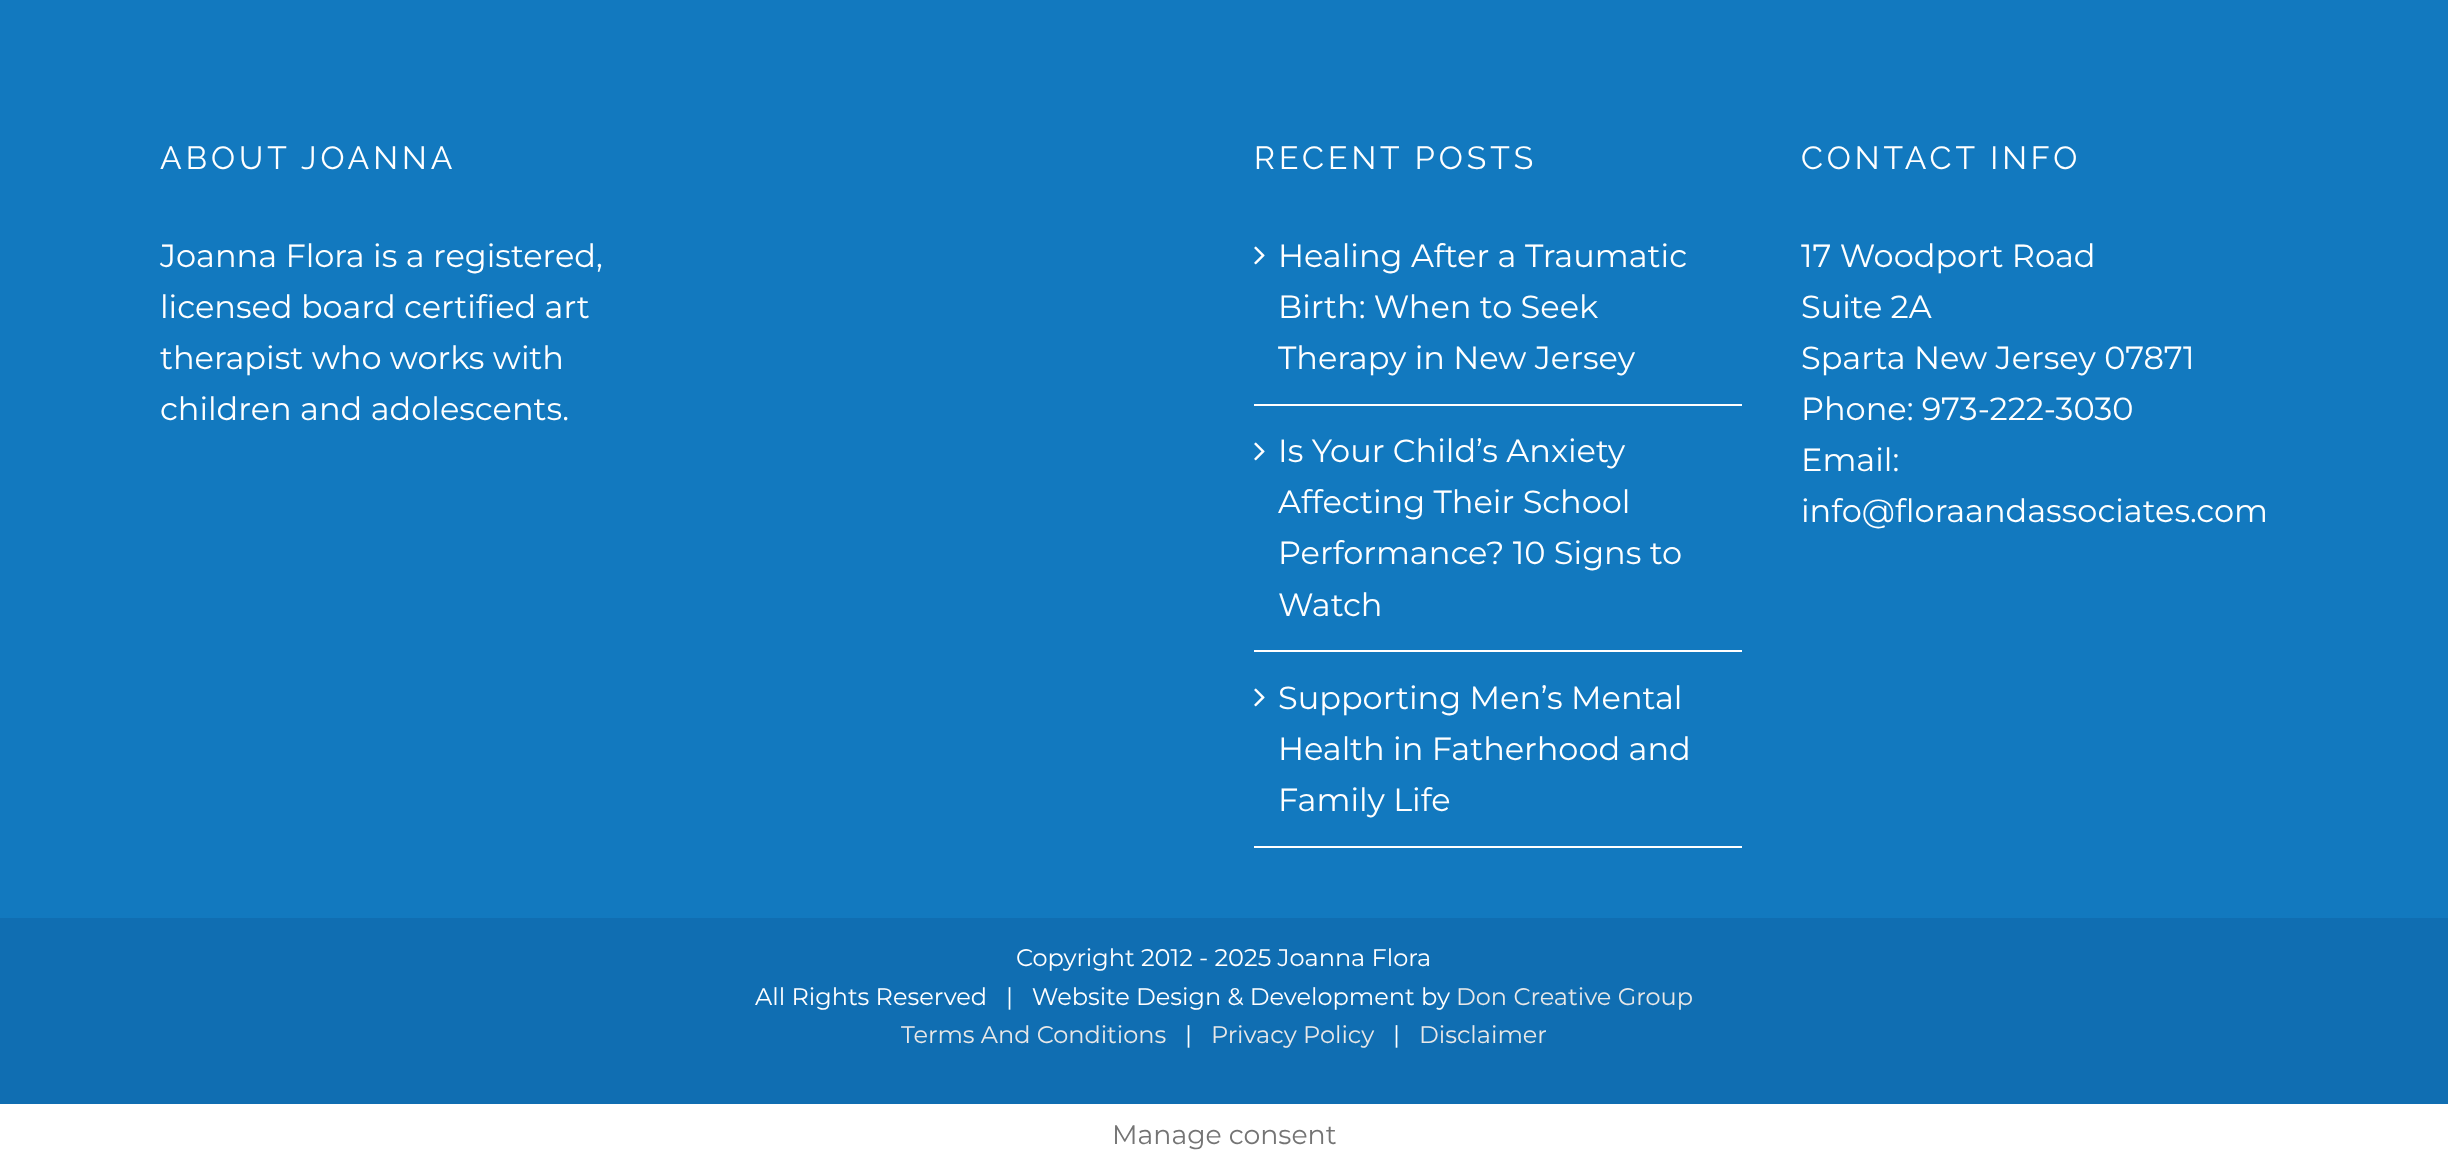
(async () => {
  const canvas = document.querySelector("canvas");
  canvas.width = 2448;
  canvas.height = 1165;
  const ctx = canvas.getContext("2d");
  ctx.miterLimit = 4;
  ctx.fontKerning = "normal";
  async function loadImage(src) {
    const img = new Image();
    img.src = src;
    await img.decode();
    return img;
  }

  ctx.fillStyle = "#ffffff";
  ctx.fillRect(0, 0, 2448, 1165);
  ctx.fillStyle = "#1279bf";
  ctx.fillRect(0, 0, 2448, 918);
  ctx.fillStyle = "#ffffff";
  ctx.fillRect(1254, 404, 488, 2);
  ctx.drawImage(await loadImage("img/1.png"), 1254, 246, 11, 19);
  ctx.fillRect(1254, 650, 488, 2);
  ctx.drawImage(await loadImage("img/1.png"), 1254, 442, 11, 19);
  ctx.fillRect(1254, 846, 488, 2);
  ctx.drawImage(await loadImage("img/1.png"), 1254, 688, 11, 19);
  ctx.fillStyle = "#106eb2";
  ctx.fillRect(0, 918, 2448, 186);
  ctx.letterSpacing = "4px";
  ctx.font = "32px Raleway";
  ctx.fillStyle = "#ffffff";
  ctx.fillText("ABOUT JOANNA", 160, 169);
  ctx.letterSpacing = "0px";
  ctx.font = "32px Montserrat";
  for (const [text, x, y] of [
    ["Joanna Flora is a registered,", 160, 267],
    ["licensed board certified art", 160, 318],
    ["therapist who works with", 160, 369],
    ["children and adolescents.", 160, 420],
  ]) {
    ctx.fillText(text, x, y);
  }
  ctx.letterSpacing = "4px";
  ctx.font = "32px Raleway";
  ctx.fillText("RECENT POSTS", 1254, 169);
  ctx.letterSpacing = "0px";
  ctx.font = "32px Montserrat";
  for (const [text, x, y] of [
    ["Healing After a Traumatic", 1278, 267],
    ["Birth: When to Seek", 1278, 318],
    ["Therapy in New Jersey", 1278, 369],
    ["Is Your Child’s Anxiety", 1278, 462],
    ["Affecting Their School", 1278, 513],
    ["Performance? 10 Signs to", 1278, 564],
    ["Watch", 1278, 616],
    ["Supporting Men’s Mental", 1278, 709],
    ["Health in Fatherhood and", 1278, 760],
    ["Family Life", 1278, 811],
  ]) {
    ctx.fillText(text, x, y);
  }
  ctx.letterSpacing = "4px";
  ctx.font = "32px Raleway";
  ctx.fillText("CONTACT INFO", 1801, 169);
  ctx.letterSpacing = "0px";
  ctx.font = "32px Montserrat";
  for (const [text, x, y] of [
    ["17 Woodport Road", 1801, 267],
    ["Suite 2A", 1801, 318],
    ["Sparta New Jersey 07871", 1801, 369],
    ["Phone: 973-222-3030", 1801, 420],
    ["Email:", 1801, 471],
    ["info@floraandassociates.com", 1801, 522],
  ]) {
    ctx.fillText(text, x, y);
  }
  ctx.font = "24px Montserrat";
  ctx.fillText("Copyright 2012 - 2025 Joanna Flora", 1016, 966);
  ctx.fillText("All Rights Reserved   |   Website Design & Development by", 755, 1005);
  ctx.fillStyle = "#e8e8e8";
  ctx.fillText("Don Creative Group", 1456, 1005);
  ctx.fillText("Terms And Conditions", 901, 1043);
  ctx.fillStyle = "#ffffff";
  ctx.fillText("|", 1185, 1043);
  ctx.fillStyle = "#e8e8e8";
  ctx.fillText("Privacy Policy", 1211, 1043);
  ctx.fillStyle = "#ffffff";
  ctx.fillText("|", 1393, 1043);
  ctx.fillStyle = "#e8e8e8";
  ctx.fillText("Disclaimer", 1419, 1043);
  ctx.font = "26.75px Montserrat";
  ctx.fillStyle = "#747474";
  ctx.fillText("Manage consent", 1112, 1144);
})();
